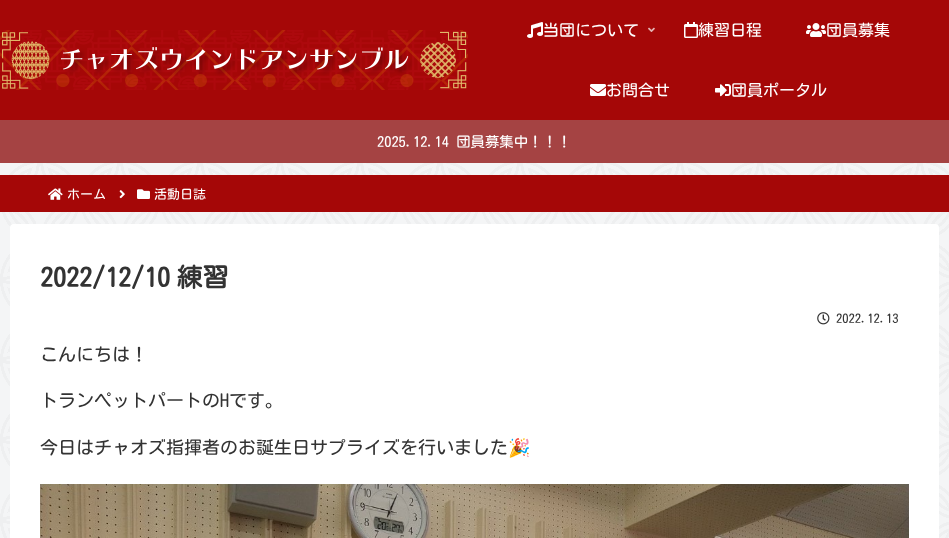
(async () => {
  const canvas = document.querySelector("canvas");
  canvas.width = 949;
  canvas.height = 538;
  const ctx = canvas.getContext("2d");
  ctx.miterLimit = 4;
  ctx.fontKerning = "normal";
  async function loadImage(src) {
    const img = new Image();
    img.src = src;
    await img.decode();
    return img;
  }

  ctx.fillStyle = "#ffffff";
  ctx.fillRect(0, 0, 949, 538);
  ctx.drawImage(await loadImage("img/1.png"), 0, 163, 949, 375);
  ctx.fillStyle = "#a50707";
  ctx.fillRect(0, 0, 949, 120);
  ctx.drawImage(await loadImage("img/2.png"), 0, 30, 468, 60);
  ctx.drawImage(await loadImage("img/3.png"), 527, 22, 16, 16);
  ctx.drawImage(await loadImage("img/4.png"), 648, 27, 7, 5);
  ctx.drawImage(await loadImage("img/5.png"), 684, 22, 14, 16);
  ctx.drawImage(await loadImage("img/6.png"), 806, 23, 20, 14);
  ctx.drawImage(await loadImage("img/7.png"), 590, 84, 16, 12);
  ctx.drawImage(await loadImage("img/8.png"), 715, 84, 16, 13);
  ctx.fillStyle = "#a54343";
  ctx.fillRect(0, 120, 949, 43);
  ctx.fillStyle = "#a50707";
  ctx.fillRect(0, 175, 949, 37);
  ctx.drawImage(await loadImage("img/9.png"), 48, 188, 15, 12);
  ctx.drawImage(await loadImage("img/10.png"), 119, 190, 6, 9);
  ctx.drawImage(await loadImage("img/11.png"), 137, 189, 13, 10);
  ctx.fillStyle = "#ffffff";
  ctx.beginPath();
  ctx.roundRect(10, 224, 929, 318, 4);
  ctx.fill();
  ctx.drawImage(await loadImage("img/12.png"), 817, 312, 13, 13);
  ctx.drawImage(await loadImage("img/13.png"), 40, 484, 869, 54);
  ctx.font = "16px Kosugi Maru";
  for (const [text, x, y] of [
    ["当団について", 543, 36],
    ["練習日程", 698, 36],
    ["団員募集", 826, 36],
    ["お問合せ", 606, 96],
    ["団員ポータル", 731, 96],
  ]) {
    ctx.fillText(text, x, y);
  }
  ctx.font = "14.4px Kosugi Maru";
  ctx.fillText("2025.12.14 団員募集中！！！", 377, 147);
  ctx.font = "13px Kosugi Maru";
  ctx.fillText("ホーム", 67, 199);
  ctx.fillText("活動日誌", 154, 199);
  ctx.font = "bold 26px Kosugi Maru";
  ctx.fillStyle = "#333333";
  ctx.fillText("2022/12/10 練習", 40, 287);
  ctx.font = "12.5px Kosugi Maru";
  ctx.fillText("2022.12.13", 836, 323);
  ctx.font = "18px Kosugi Maru";
  for (const [text, x, y] of [
    ["こんにちは！", 40, 361],
    ["トランペットパートのHです。", 40, 407],
    ["今日はチャオズ指揮者のお誕生日サプライズを行いました", 40, 454],
  ]) {
    ctx.fillText(text, x, y);
  }
  ctx.font = "18px Noto Color Emoji";
  ctx.fillText("🎉", 508, 454);
})();
